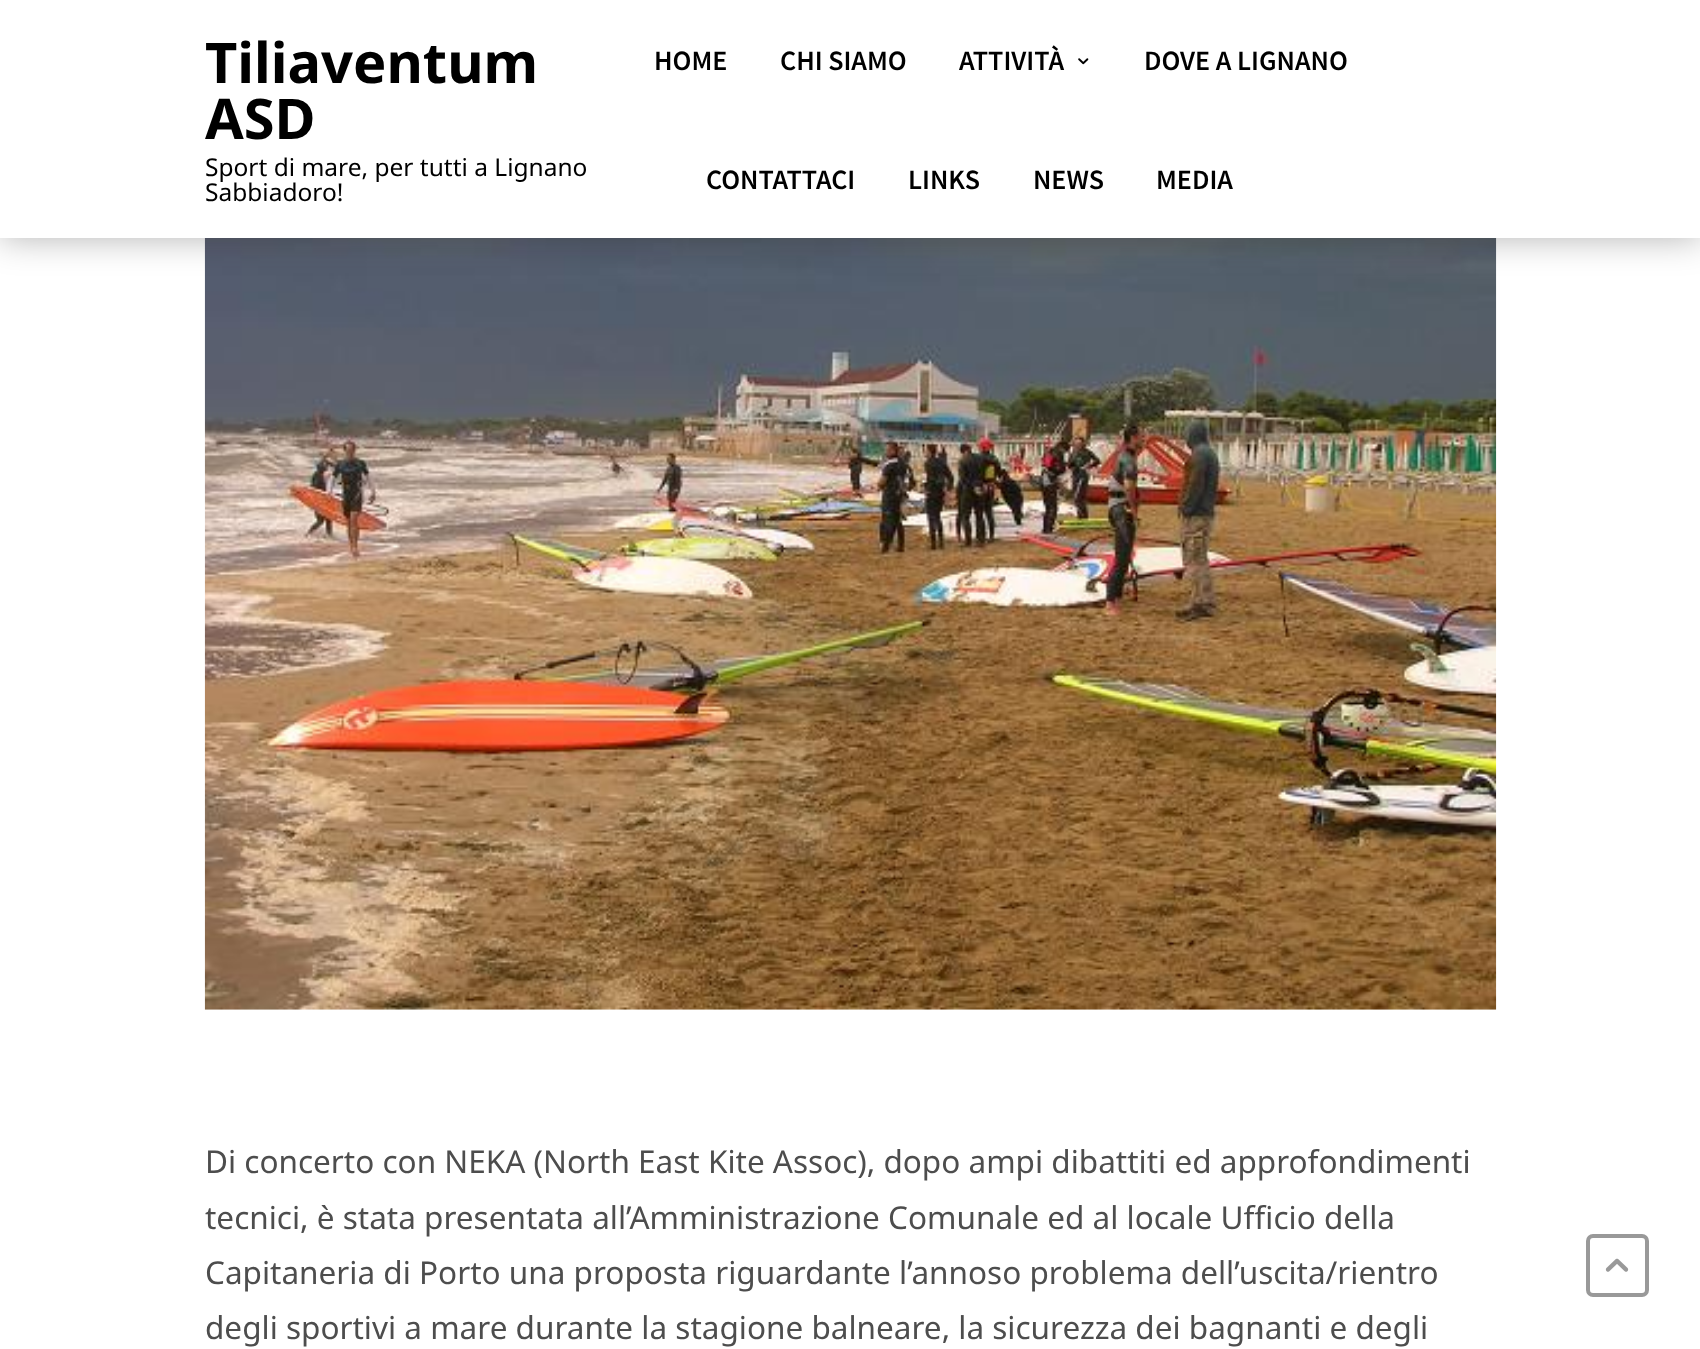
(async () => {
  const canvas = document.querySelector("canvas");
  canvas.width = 1700;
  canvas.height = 1349;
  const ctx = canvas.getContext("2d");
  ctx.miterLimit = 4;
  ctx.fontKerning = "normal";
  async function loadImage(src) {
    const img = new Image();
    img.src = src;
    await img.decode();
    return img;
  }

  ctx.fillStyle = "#ffffff";
  ctx.fillRect(0, 0, 1700, 1349);
  ctx.drawImage(await loadImage("img/2.png"), 204, 238, 1293, 772);
  ctx.fillStyle = "rgba(0, 0, 0, 0.3)";
  ctx.filter = "blur(17.5px)";
  ctx.beginPath();
  ctx.rect(0, 0, 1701, 238);
  ctx.fill();
  ctx.filter = "none";
  ctx.fillStyle = "#ffffff";
  ctx.fillRect(0, 0, 1700, 238);
  ctx.drawImage(await loadImage("img/1.png"), 1078, 58, 11, 7);
  ctx.beginPath();
  ctx.roundRect(1588, 1236, 59, 59, 5);
  ctx.strokeStyle = "#999999";
  ctx.lineWidth = 4;
  ctx.stroke();
  ctx.drawImage(await loadImage("img/3.png"), 1605, 1258, 24, 14);
  ctx.font = "bold 56px Noto Sans";
  ctx.fillStyle = "#000000";
  ctx.fillText("Tiliaventum", 205, 83);
  ctx.fillText("ASD", 205, 139);
  ctx.font = "24.5px Noto Sans";
  ctx.fillText("Sport di mare, per tutti a Lignano", 205, 176);
  ctx.fillText("Sabbiadoro!", 205, 201);
  ctx.font = "600 28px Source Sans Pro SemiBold";
  for (const [text, x, y] of [
    ["HOME", 654, 70],
    ["CHI SIAMO", 780, 70],
    ["ATTIVITÀ", 959, 70],
    ["DOVE A LIGNANO", 1144, 70],
    ["CONTATTACI", 706, 189],
    ["LINKS", 908, 189],
    ["NEWS", 1033, 189],
    ["MEDIA", 1156, 189],
  ]) {
    ctx.fillText(text, x, y);
  }
  ctx.font = "31.5px Noto Sans";
  ctx.fillStyle = "#4d4d4d";
  for (const [text, x, y] of [
    ["Di concerto con NEKA (North East Kite Assoc), dopo ampi dibattiti ed approfondimenti", 205, 1173],
    ["tecnici, è stata presentata all’Amministrazione Comunale ed al locale Ufficio della", 205, 1229],
    ["Capitaneria di Porto una proposta riguardante l’annoso problema dell’uscita/rientro", 205, 1284],
    ["degli sportivi a mare durante la stagione balneare, la sicurezza dei bagnanti e degli", 205, 1339],
  ]) {
    ctx.fillText(text, x, y);
  }
})();
